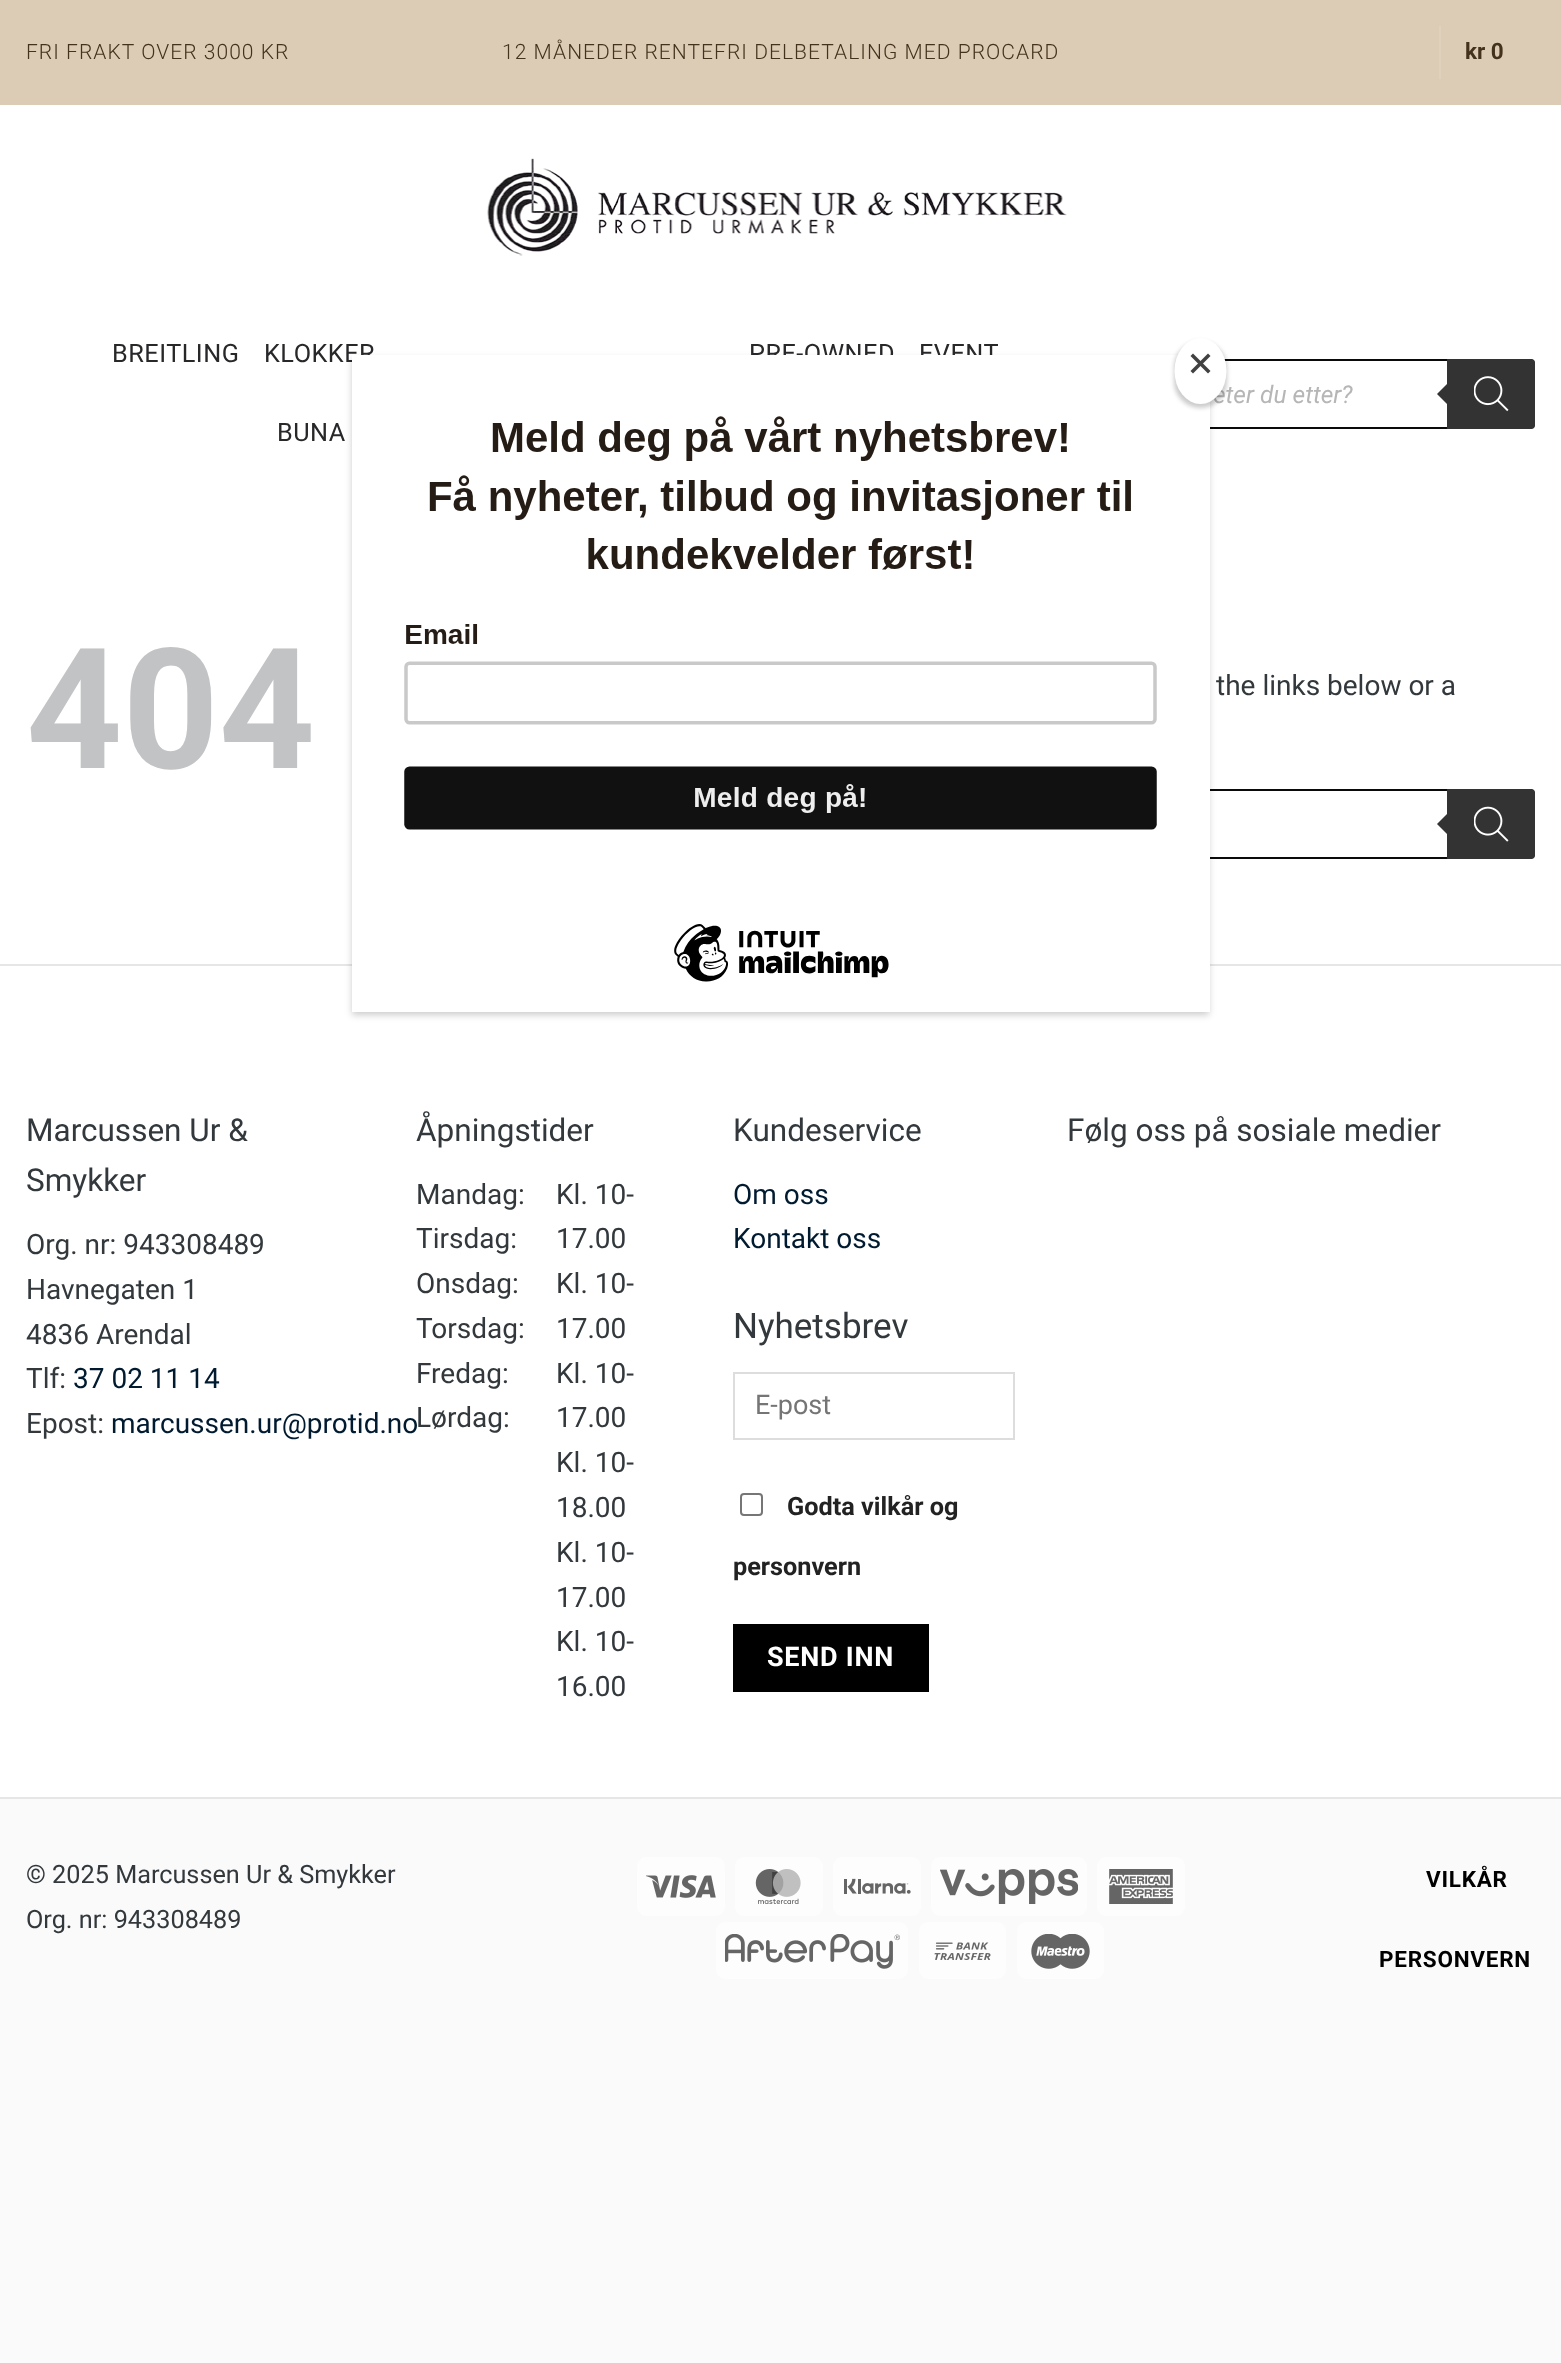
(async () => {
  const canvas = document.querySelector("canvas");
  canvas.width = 1561;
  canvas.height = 2363;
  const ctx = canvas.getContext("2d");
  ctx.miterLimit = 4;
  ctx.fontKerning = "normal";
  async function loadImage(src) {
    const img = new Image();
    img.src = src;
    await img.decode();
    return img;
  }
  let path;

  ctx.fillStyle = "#fafafa";
  ctx.fillRect(0, 0, 1561, 2363);
  for (const [x, y, w, h, color] of [
    [0, 105, 1561, 1692, "#ffffff"],
    [0, 0, 1561, 105, "#dcccb6"],
    [1439, 26, 2, 53, "#e0d1bd"],
  ]) {
    ctx.fillStyle = color;
    ctx.fillRect(x, y, w, h);
  }
  ctx.drawImage(await loadImage("img/1.png"), 487, 158, 580, 98);
  ctx.beginPath();
  ctx.roundRect(1133, 360, 401, 68, 4);
  ctx.strokeStyle = "#0a0a0a";
  ctx.lineWidth = 2;
  ctx.stroke();
  ctx.fillStyle = "#333333";
  ctx.beginPath();
  ctx.roundRect(1447, 359, 88, 70, [0, 4, 4, 0]);
  ctx.fill();
  path = new Path2D("M1451 380V408L1437 394Z");
  ctx.fill(path);
  ctx.drawImage(await loadImage("img/2.png"), 1474, 376, 35, 36);
  ctx.beginPath();
  ctx.roundRect(418, 790, 1116, 68, 4);
  ctx.stroke();
  ctx.beginPath();
  ctx.roundRect(1447, 789, 88, 70, [0, 4, 4, 0]);
  ctx.fill();
  path = new Path2D("M1451 810V838L1437 824Z");
  ctx.fill(path);
  ctx.drawImage(await loadImage("img/3.png"), 1474, 806, 35, 36);
  ctx.fillStyle = "#e6e6e6";
  ctx.fillRect(0, 964, 1561, 2);
  ctx.strokeStyle = "#dddddd";
  ctx.strokeRect(734, 1373, 280, 66);
  ctx.beginPath();
  ctx.roundRect(741, 1494, 21, 21, 3);
  ctx.strokeStyle = "#767676";
  ctx.stroke();
  ctx.fillStyle = "#000000";
  ctx.fillRect(733, 1624, 196, 68);
  ctx.fillStyle = "#e6e6e6";
  ctx.fillRect(0, 1797, 1561, 2);
  ctx.fillStyle = "#fdfdfd";
  ctx.beginPath();
  ctx.roundRect(637, 1857, 88, 59, 9);
  ctx.fill();
  ctx.drawImage(await loadImage("img/4.png"), 646, 1875, 70, 23);
  ctx.beginPath();
  ctx.roundRect(735, 1857, 88, 59, 9);
  ctx.fill();
  ctx.drawImage(await loadImage("img/5.png"), 755, 1869, 46, 35);
  ctx.beginPath();
  ctx.roundRect(833, 1857, 88, 59, 9);
  ctx.fill();
  ctx.drawImage(await loadImage("img/6.png"), 844, 1878, 67, 16);
  ctx.beginPath();
  ctx.roundRect(931, 1857, 156, 59, 9);
  ctx.fill();
  ctx.drawImage(await loadImage("img/7.png"), 940, 1869, 138, 35);
  ctx.beginPath();
  ctx.roundRect(1097, 1857, 88, 59, 9);
  ctx.fill();
  ctx.drawImage(await loadImage("img/8.png"), 1109, 1869, 64, 35);
  ctx.beginPath();
  ctx.roundRect(716, 1922, 192, 57, 9);
  ctx.fill();
  ctx.drawImage(await loadImage("img/9.png"), 725, 1934, 175, 35);
  ctx.beginPath();
  ctx.roundRect(919, 1922, 87, 57, 9);
  ctx.fill();
  ctx.drawImage(await loadImage("img/10.png"), 934, 1942, 57, 18);
  ctx.beginPath();
  ctx.roundRect(1017, 1922, 87, 57, 9);
  ctx.fill();
  ctx.drawImage(await loadImage("img/11.png"), 1031, 1934, 59, 35);
  ctx.fillStyle = "rgba(0, 0, 0, 0.2)";
  ctx.filter = "blur(3.5px)";
  ctx.beginPath();
  ctx.rect(352, 359, 857, 656);
  ctx.fill();
  ctx.filter = "none";
  ctx.letterSpacing = "1.05px";
  ctx.font = "300 21px Roboto";
  ctx.fillStyle = "#44321d";
  ctx.fillText("FRI FRAKT OVER 3000 KR", 26, 59);
  ctx.fillText("12 MÅNEDER RENTEFRI DELBETALING MED PROCARD", 502, 59);
  ctx.letterSpacing = "0px";
  ctx.font = "bold 22.5px Roboto";
  ctx.fillText("kr 0", 1465, 59);
  ctx.letterSpacing = "0.5px";
  ctx.font = "25.25px Roboto";
  ctx.fillStyle = "#28282b";
  for (const [text, x, y] of [
    ["BREITLING", 112, 362],
    ["KLOKKER", 264, 362],
    ["PRE-OWNED", 749, 362],
    ["EVENT", 919, 362],
    ["BUNA", 277, 441],
  ]) {
    ctx.fillText(text, x, y);
  }
  ctx.letterSpacing = "0px";
  ctx.font = "italic 24.5px Roboto";
  ctx.fillStyle = "#b6b6b6";
  ctx.fillText("eter du etter?", 1213, 403);
  ctx.font = "bold 168px Roboto";
  ctx.fillStyle = "#c2c3c5";
  ctx.fillText("404", 26, 768);
  ctx.font = "28px Roboto";
  ctx.fillStyle = "#32383c";
  ctx.fillText("the links below or a", 1216, 695);
  ctx.font = "31.5px Roboto";
  ctx.fillText("Marcussen Ur &", 26, 1141);
  ctx.fillText("Smykker", 26, 1191);
  ctx.font = "28px Roboto";
  for (const [text, x, y] of [
    ["Org. nr: 943308489", 26, 1254],
    ["Havnegaten 1", 26, 1299],
    ["4836 Arendal", 26, 1344],
    ["Tlf:", 26, 1388],
  ]) {
    ctx.fillText(text, x, y);
  }
  ctx.fillStyle = "#001a30";
  ctx.fillText("37 02 11 14", 73, 1388);
  ctx.fillStyle = "#32383c";
  ctx.fillText("Epost:", 26, 1433);
  ctx.fillStyle = "#001a30";
  ctx.fillText("marcussen.ur@protid.no", 111, 1433);
  ctx.font = "31.5px Roboto";
  ctx.fillStyle = "#32383c";
  ctx.fillText("Åpningstider", 416, 1141);
  ctx.font = "28px Roboto";
  for (const [text, x, y] of [
    ["Mandag:", 416, 1204],
    ["Tirsdag:", 416, 1248],
    ["Onsdag:", 416, 1293],
    ["Torsdag:", 416, 1338],
    ["Fredag:", 416, 1383],
    ["Lørdag:", 416, 1427],
    ["Kl. 10-", 556, 1204],
    ["17.00", 556, 1248],
    ["Kl. 10-", 556, 1293],
    ["17.00", 556, 1338],
    ["Kl. 10-", 556, 1383],
    ["17.00", 556, 1427],
    ["Kl. 10-", 556, 1472],
    ["18.00", 556, 1517],
    ["Kl. 10-", 556, 1562],
    ["17.00", 556, 1607],
    ["Kl. 10-", 556, 1651],
    ["16.00", 556, 1696],
  ]) {
    ctx.fillText(text, x, y);
  }
  ctx.font = "31.5px Roboto";
  ctx.fillText("Kundeservice", 733, 1141);
  ctx.font = "28px Roboto";
  ctx.fillStyle = "#001a30";
  ctx.fillText("Om oss", 733, 1204);
  ctx.fillText("Kontakt oss", 733, 1248);
  ctx.font = "35px Roboto";
  ctx.fillStyle = "#32383c";
  ctx.fillText("Nyhetsbrev", 733, 1338);
  ctx.font = "27px Roboto";
  ctx.fillStyle = "#757575";
  ctx.fillText("E-post", 755, 1414);
  ctx.font = "bold 25.25px Roboto";
  ctx.fillStyle = "#222222";
  ctx.fillText("Godta vilkår og", 787, 1515);
  ctx.fillText("personvern", 733, 1575);
  ctx.letterSpacing = "0.75px";
  ctx.font = "bold 27px Roboto";
  ctx.fillStyle = "#ffffff";
  ctx.fillText("SEND INN", 767, 1666);
  ctx.letterSpacing = "0px";
  ctx.font = "31.5px Roboto";
  ctx.fillStyle = "#32383c";
  ctx.fillText("Følg oss på sosiale medier", 1067, 1141);
  ctx.font = "25.25px Roboto";
  ctx.fillText("© 2025 Marcussen Ur & Smykker", 26, 1883);
  ctx.fillText("Org. nr: 943308489", 26, 1928);
  ctx.letterSpacing = "0.75px";
  ctx.font = "bold 22.5px Roboto";
  ctx.fillStyle = "#000000";
  ctx.fillText("VILKÅR", 1426, 1887);
  ctx.fillText("PERSONVERN", 1379, 1967);
  ctx.drawImage(await loadImage("img/12.png"), 352, 355, 858, 657);
  ctx.fillStyle = "rgba(0, 0, 0, 0.2)";
  ctx.filter = "blur(2px)";
  ctx.beginPath();
  ctx.roundRect(1174, 341, 53, 67, 26.5);
  ctx.fill();
  ctx.filter = "none";
  ctx.fillStyle = "#ffffff";
  ctx.beginPath();
  ctx.ellipse(1200.5, 371, 26, 33, 0, 0, Math.PI * 2);
  ctx.fill();
  ctx.fillStyle = "#414141";
  path = new Path2D("M1208 353.5L1210.5 356L1193 373.5L1190.5 371Z");
  ctx.fill(path);
  path = new Path2D("M1190.5 356L1193 353.5L1210.5 371L1208 373.5Z");
  ctx.fill(path);
})();
